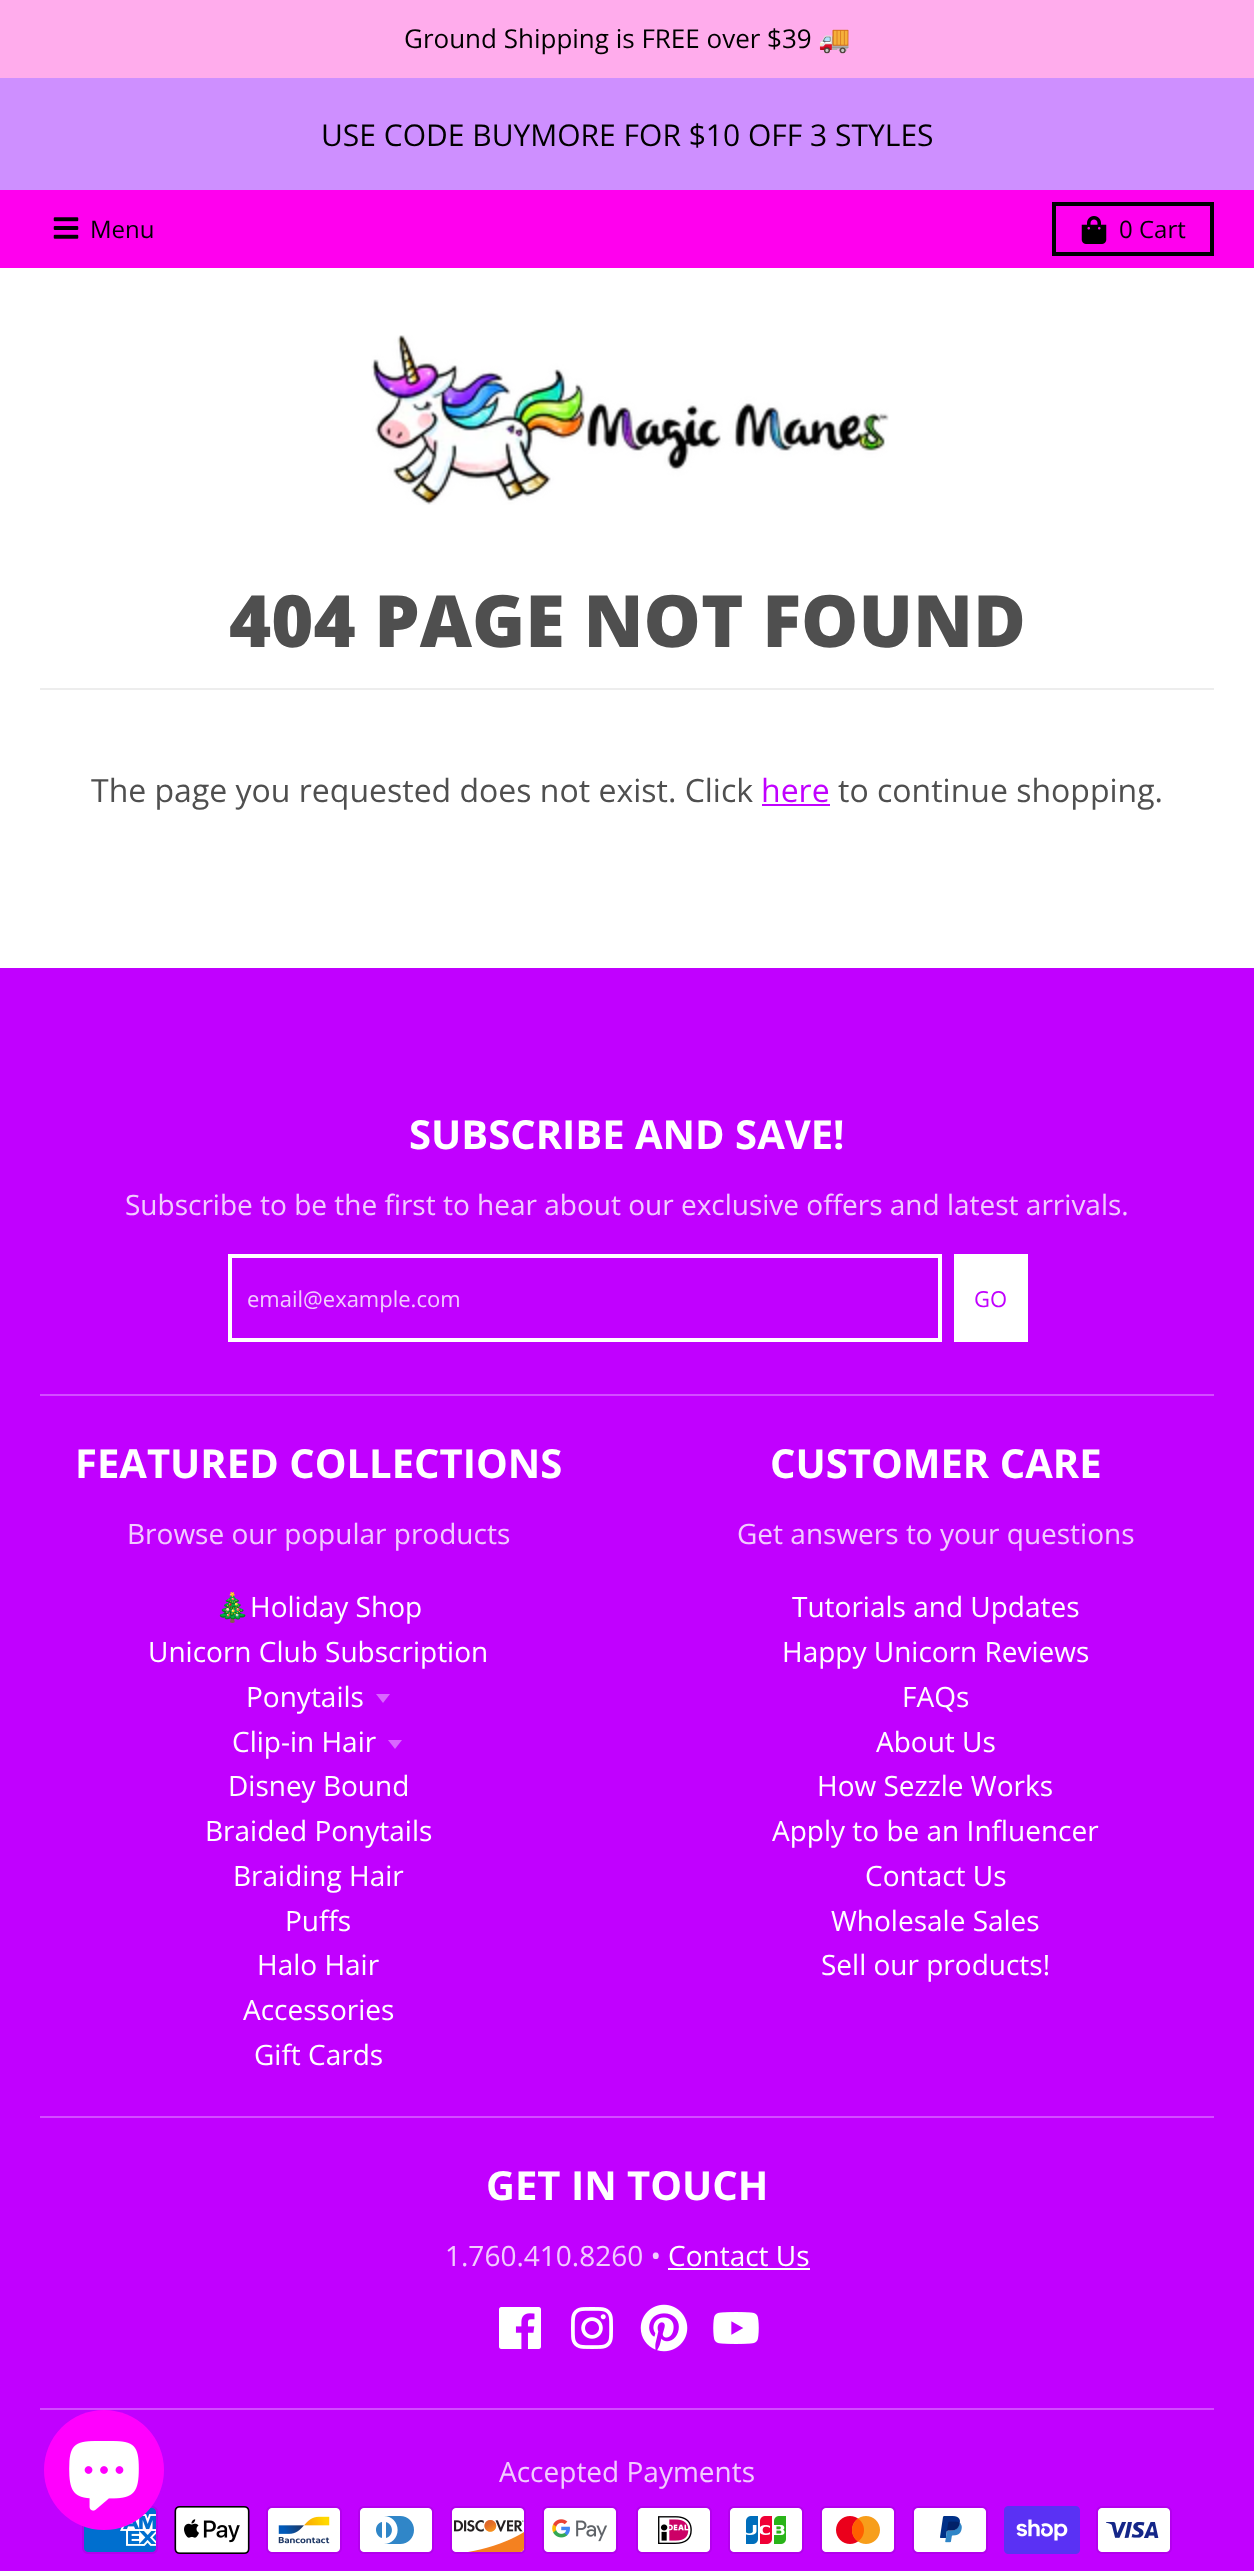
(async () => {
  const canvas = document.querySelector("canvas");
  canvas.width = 1254;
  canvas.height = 2571;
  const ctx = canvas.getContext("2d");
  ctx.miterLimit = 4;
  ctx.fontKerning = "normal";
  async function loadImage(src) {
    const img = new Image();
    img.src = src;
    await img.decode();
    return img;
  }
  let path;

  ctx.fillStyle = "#ffffff";
  ctx.fillRect(0, 0, 1254, 2571);
  for (const [x, y, w, h, color] of [
    [0, 0, 1254, 78, "#ffacec"],
    [0, 78, 1254, 112, "#ce8fff"],
    [0, 190, 1254, 78, "#ff00ee"],
  ]) {
    ctx.fillStyle = color;
    ctx.fillRect(x, y, w, h);
  }
  ctx.drawImage(await loadImage("img/1.png"), 53, 217, 26, 22);
  ctx.strokeStyle = "#000000";
  ctx.lineWidth = 4;
  ctx.strokeRect(1054, 204, 158, 50);
  ctx.drawImage(await loadImage("img/2.png"), 1081, 216, 26, 28);
  ctx.drawImage(await loadImage("img/3.png"), 371, 335, 518, 170);
  for (const [x, y, w, h, color] of [
    [40, 688, 1174, 2, "#ededed"],
    [762, 804, 68, 2, "#c100ff"],
    [0, 968, 1254, 1603, "#c100ff"],
    [40, 1394, 1174, 2, "#d34cff"],
  ]) {
    ctx.fillStyle = color;
    ctx.fillRect(x, y, w, h);
  }
  ctx.strokeStyle = "#ffffff";
  ctx.strokeRect(230, 1256, 710, 84);
  ctx.fillStyle = "#ffffff";
  ctx.fillRect(954, 1254, 74, 88);
  ctx.fillStyle = "#da66ff";
  path = new Path2D("M376 1694L383 1703L390 1694Z");
  ctx.fill(path);
  path = new Path2D("M388 1740L395 1749L402 1740Z");
  ctx.fill(path);
  ctx.fillStyle = "#d34cff";
  ctx.fillRect(40, 2116, 1174, 2);
  ctx.fillStyle = "#ffffff";
  ctx.fillRect(668, 2268, 142, 2);
  ctx.drawImage(await loadImage("img/4.png"), 499, 2307, 42, 42);
  ctx.drawImage(await loadImage("img/5.png"), 571, 2307, 42, 42);
  ctx.drawImage(await loadImage("img/6.png"), 640, 2304, 48, 48);
  ctx.drawImage(await loadImage("img/7.png"), 713, 2312, 46, 32);
  ctx.fillStyle = "#d34cff";
  ctx.fillRect(40, 2408, 1174, 2);
  ctx.drawImage(await loadImage("img/8.png"), 82, 2506, 76, 48);
  ctx.drawImage(await loadImage("img/9.png"), 174, 2506, 76, 48);
  ctx.drawImage(await loadImage("img/10.png"), 266, 2506, 76, 48);
  ctx.drawImage(await loadImage("img/11.png"), 358, 2506, 76, 48);
  ctx.drawImage(await loadImage("img/12.png"), 450, 2506, 76, 48);
  ctx.drawImage(await loadImage("img/13.png"), 542, 2506, 76, 48);
  ctx.drawImage(await loadImage("img/14.png"), 636, 2506, 76, 48);
  ctx.drawImage(await loadImage("img/15.png"), 728, 2506, 76, 48);
  ctx.drawImage(await loadImage("img/16.png"), 820, 2506, 76, 48);
  ctx.drawImage(await loadImage("img/17.png"), 912, 2506, 76, 48);
  ctx.drawImage(await loadImage("img/18.png"), 1004, 2506, 76, 48);
  ctx.drawImage(await loadImage("img/19.png"), 1096, 2506, 76, 48);
  ctx.fillStyle = "#ff00fe";
  ctx.beginPath();
  ctx.arc(104, 2470, 60, 0, Math.PI * 2);
  ctx.fill();
  ctx.drawImage(await loadImage("img/20.png"), 69, 2441, 70, 70);
  ctx.font = "26px Open Sans";
  ctx.fillStyle = "#000000";
  ctx.fillText("Ground Shipping is FREE over $39", 404, 48);
  ctx.font = "26px Noto Color Emoji";
  ctx.fillText("🚚", 818, 48);
  ctx.font = "30px Open Sans";
  ctx.fillText("USE CODE BUYMORE FOR $10 OFF 3 STYLES", 321, 146);
  ctx.font = "24px Open Sans";
  ctx.fillText("Menu", 90, 238);
  ctx.fillText("0 Cart", 1119, 238);
  ctx.font = "800 72px Open Sans";
  ctx.fillStyle = "#4f4f4f";
  ctx.fillText("404 PAGE NOT FOUND", 229, 647);
  ctx.font = "32px Open Sans";
  ctx.fillText("The page you requested does not exist. Click", 91, 802);
  ctx.fillStyle = "#c100ff";
  ctx.fillText("here", 761, 802);
  ctx.fillStyle = "#4f4f4f";
  ctx.fillText("to continue shopping.", 838, 802);
  ctx.font = "bold 40px Open Sans";
  ctx.fillStyle = "#ffffff";
  ctx.fillText("SUBSCRIBE AND SAVE!", 409, 1149);
  ctx.font = "28px Open Sans";
  ctx.fillStyle = "#f2ccff";
  ctx.fillText("Subscribe to be the first to hear about our exclusive offers and latest arrivals.", 125, 1215);
  ctx.font = "22px Open Sans";
  ctx.fillText("email@example.com", 247, 1307);
  ctx.fillStyle = "#c100ff";
  ctx.fillText("GO", 974, 1307);
  ctx.font = "bold 40px Open Sans";
  ctx.fillStyle = "#ffffff";
  ctx.fillText("FEATURED COLLECTIONS", 75, 1478);
  ctx.font = "28px Open Sans";
  ctx.fillStyle = "#f2ccff";
  ctx.fillText("Browse our popular products", 127, 1544);
  ctx.font = "28px Noto Color Emoji";
  ctx.fillStyle = "#ffffff";
  ctx.fillText("🎄", 215, 1617);
  ctx.font = "28px Open Sans";
  for (const [text, x, y] of [
    ["Holiday Shop", 250, 1617],
    ["Unicorn Club Subscription", 148, 1662],
    ["Ponytails", 246, 1707],
    ["Clip-in Hair", 232, 1752],
    ["Disney Bound", 228, 1796],
    ["Braided Ponytails", 205, 1841],
    ["Braiding Hair", 233, 1886],
    ["Puffs", 285, 1931],
    ["Halo Hair", 257, 1975],
    ["Accessories", 243, 2020],
    ["Gift Cards", 254, 2065],
  ]) {
    ctx.fillText(text, x, y);
  }
  ctx.font = "bold 40px Open Sans";
  ctx.fillText("CUSTOMER CARE", 770, 1478);
  ctx.font = "28px Open Sans";
  ctx.fillStyle = "#f2ccff";
  ctx.fillText("Get answers to your questions", 737, 1544);
  ctx.fillStyle = "#ffffff";
  for (const [text, x, y] of [
    ["Tutorials and Updates", 792, 1617],
    ["Happy Unicorn Reviews", 782, 1662],
    ["FAQs", 902, 1707],
    ["About Us", 876, 1752],
    ["How Sezzle Works", 817, 1796],
    ["Apply to be an Influencer", 772, 1841],
    ["Contact Us", 865, 1886],
    ["Wholesale Sales", 831, 1931],
    ["Sell our products!", 821, 1975],
  ]) {
    ctx.fillText(text, x, y);
  }
  ctx.font = "bold 40px Open Sans";
  ctx.fillText("GET IN TOUCH", 486, 2200);
  ctx.font = "28px Open Sans";
  ctx.fillStyle = "#f2ccff";
  ctx.fillText("1.760.410.8260 •", 445, 2266);
  ctx.fillStyle = "#ffffff";
  ctx.fillText("Contact Us", 668, 2266);
  ctx.fillStyle = "#f2ccff";
  ctx.fillText("Accepted Payments", 499, 2482);
})();
